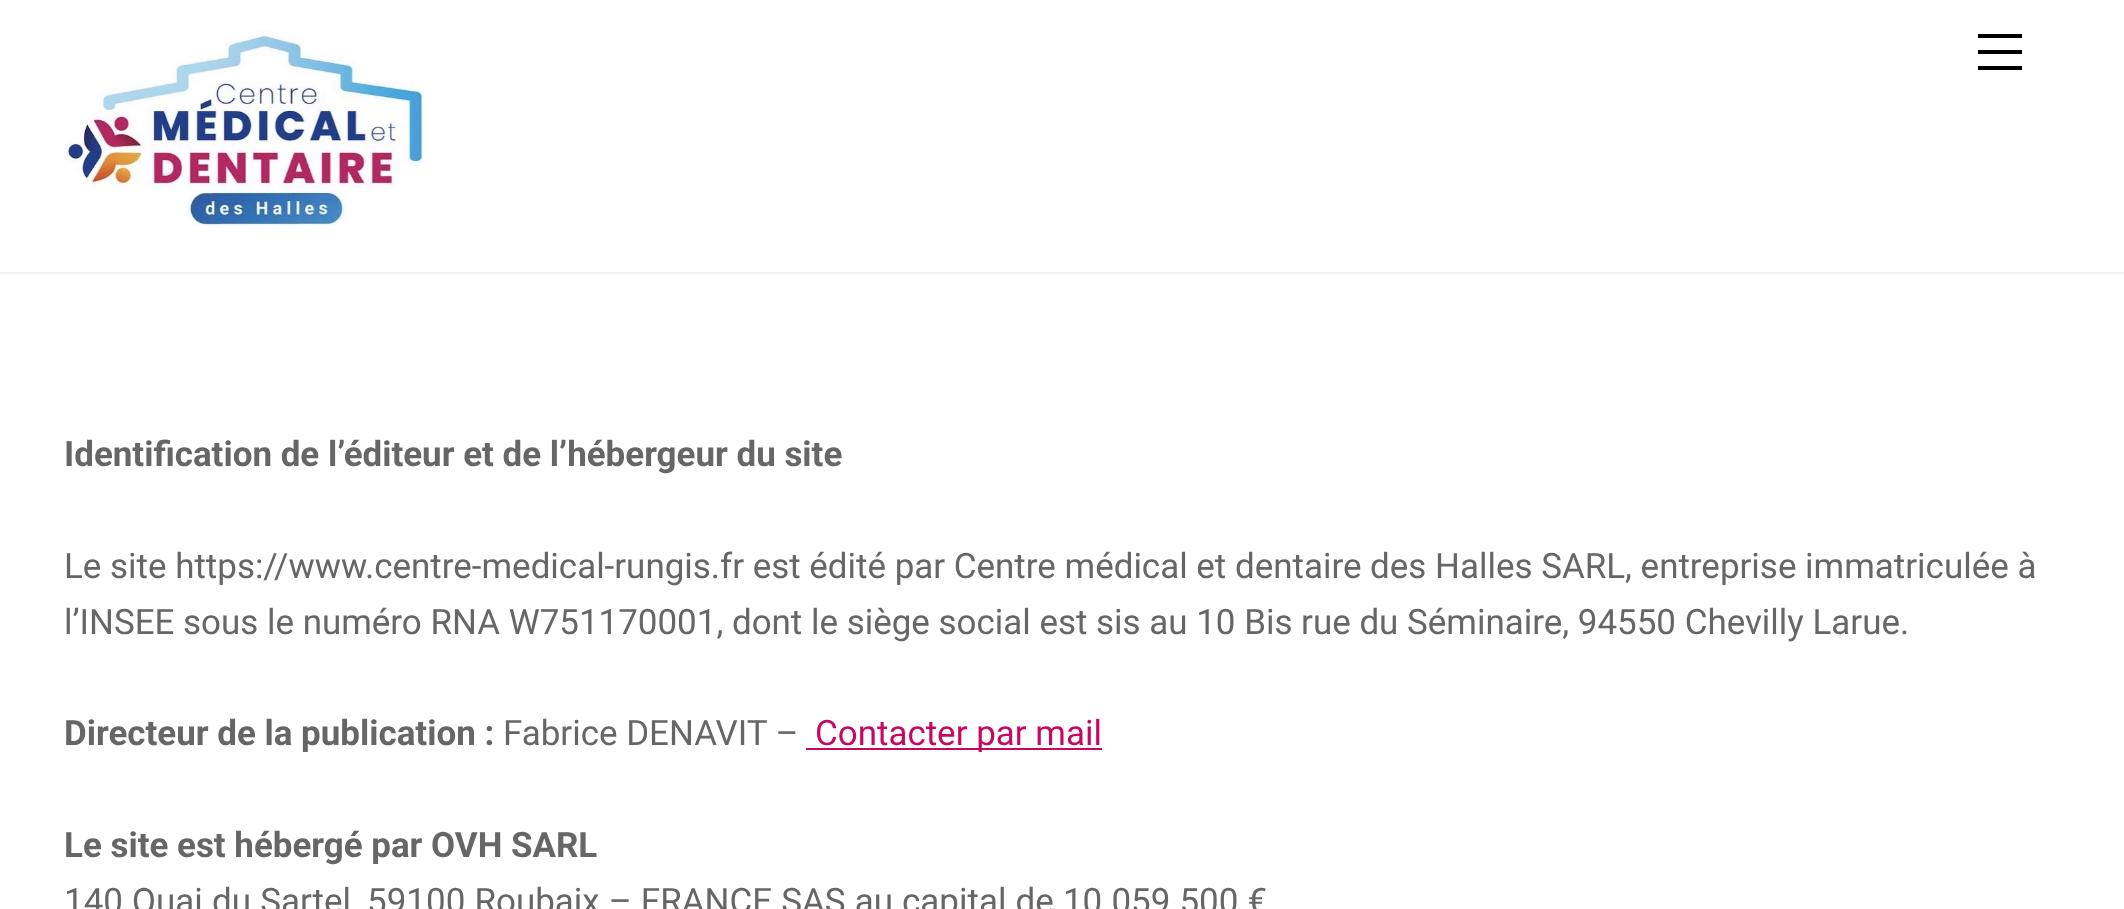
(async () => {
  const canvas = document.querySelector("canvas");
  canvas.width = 2124;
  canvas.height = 909;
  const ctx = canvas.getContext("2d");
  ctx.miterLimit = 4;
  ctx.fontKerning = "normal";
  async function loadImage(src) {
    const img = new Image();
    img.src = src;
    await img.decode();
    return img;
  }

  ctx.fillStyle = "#ffffff";
  ctx.fillRect(0, 0, 2124, 909);
  ctx.fillStyle = "#f2f2f2";
  ctx.fillRect(0, 272, 2124, 2);
  ctx.drawImage(await loadImage("img/1.png"), 64, 30, 361, 196);
  for (const [x, y, w, h, color] of [
    [1978, 66, 44, 4, "#000000"],
    [1978, 34, 44, 4, "#000000"],
    [1978, 50, 44, 4, "#000000"],
    [806, 748, 296, 2, "#c70862"],
  ]) {
    ctx.fillStyle = color;
    ctx.fillRect(x, y, w, h);
  }
  ctx.font = "bold 34.95px Roboto";
  ctx.fillStyle = "#666666";
  ctx.fillText("Identification de l’éditeur et de l’hébergeur du site", 64, 466);
  ctx.font = "34.95px Roboto";
  ctx.fillText("Le site https://www.centre-medical-rungis.fr est édité par Centre médical et dentaire des Halles SARL, entreprise immatriculée à", 64, 578);
  ctx.fillText("l’INSEE sous le numéro RNA W751170001, dont le siège social est sis au 10 Bis rue du Séminaire, 94550 Chevilly Larue.", 64, 634);
  ctx.font = "bold 34.95px Roboto";
  ctx.fillText("Directeur de la publication :", 64, 745);
  ctx.font = "34.95px Roboto";
  ctx.fillText("Fabrice DENAVIT –", 503, 745);
  ctx.fillStyle = "#c70862";
  ctx.fillText("Contacter par mail", 815, 745);
  ctx.font = "bold 34.95px Roboto";
  ctx.fillStyle = "#666666";
  ctx.fillText("Le site est hébergé par OVH SARL", 64, 857);
  ctx.wordSpacing = "0.5px";
  ctx.font = "34.95px Roboto";
  ctx.fillText("140 Quai du Sartel, 59100 Roubaix – FRANCE SAS au capital de 10 059 500 €", 64, 913);
})();
